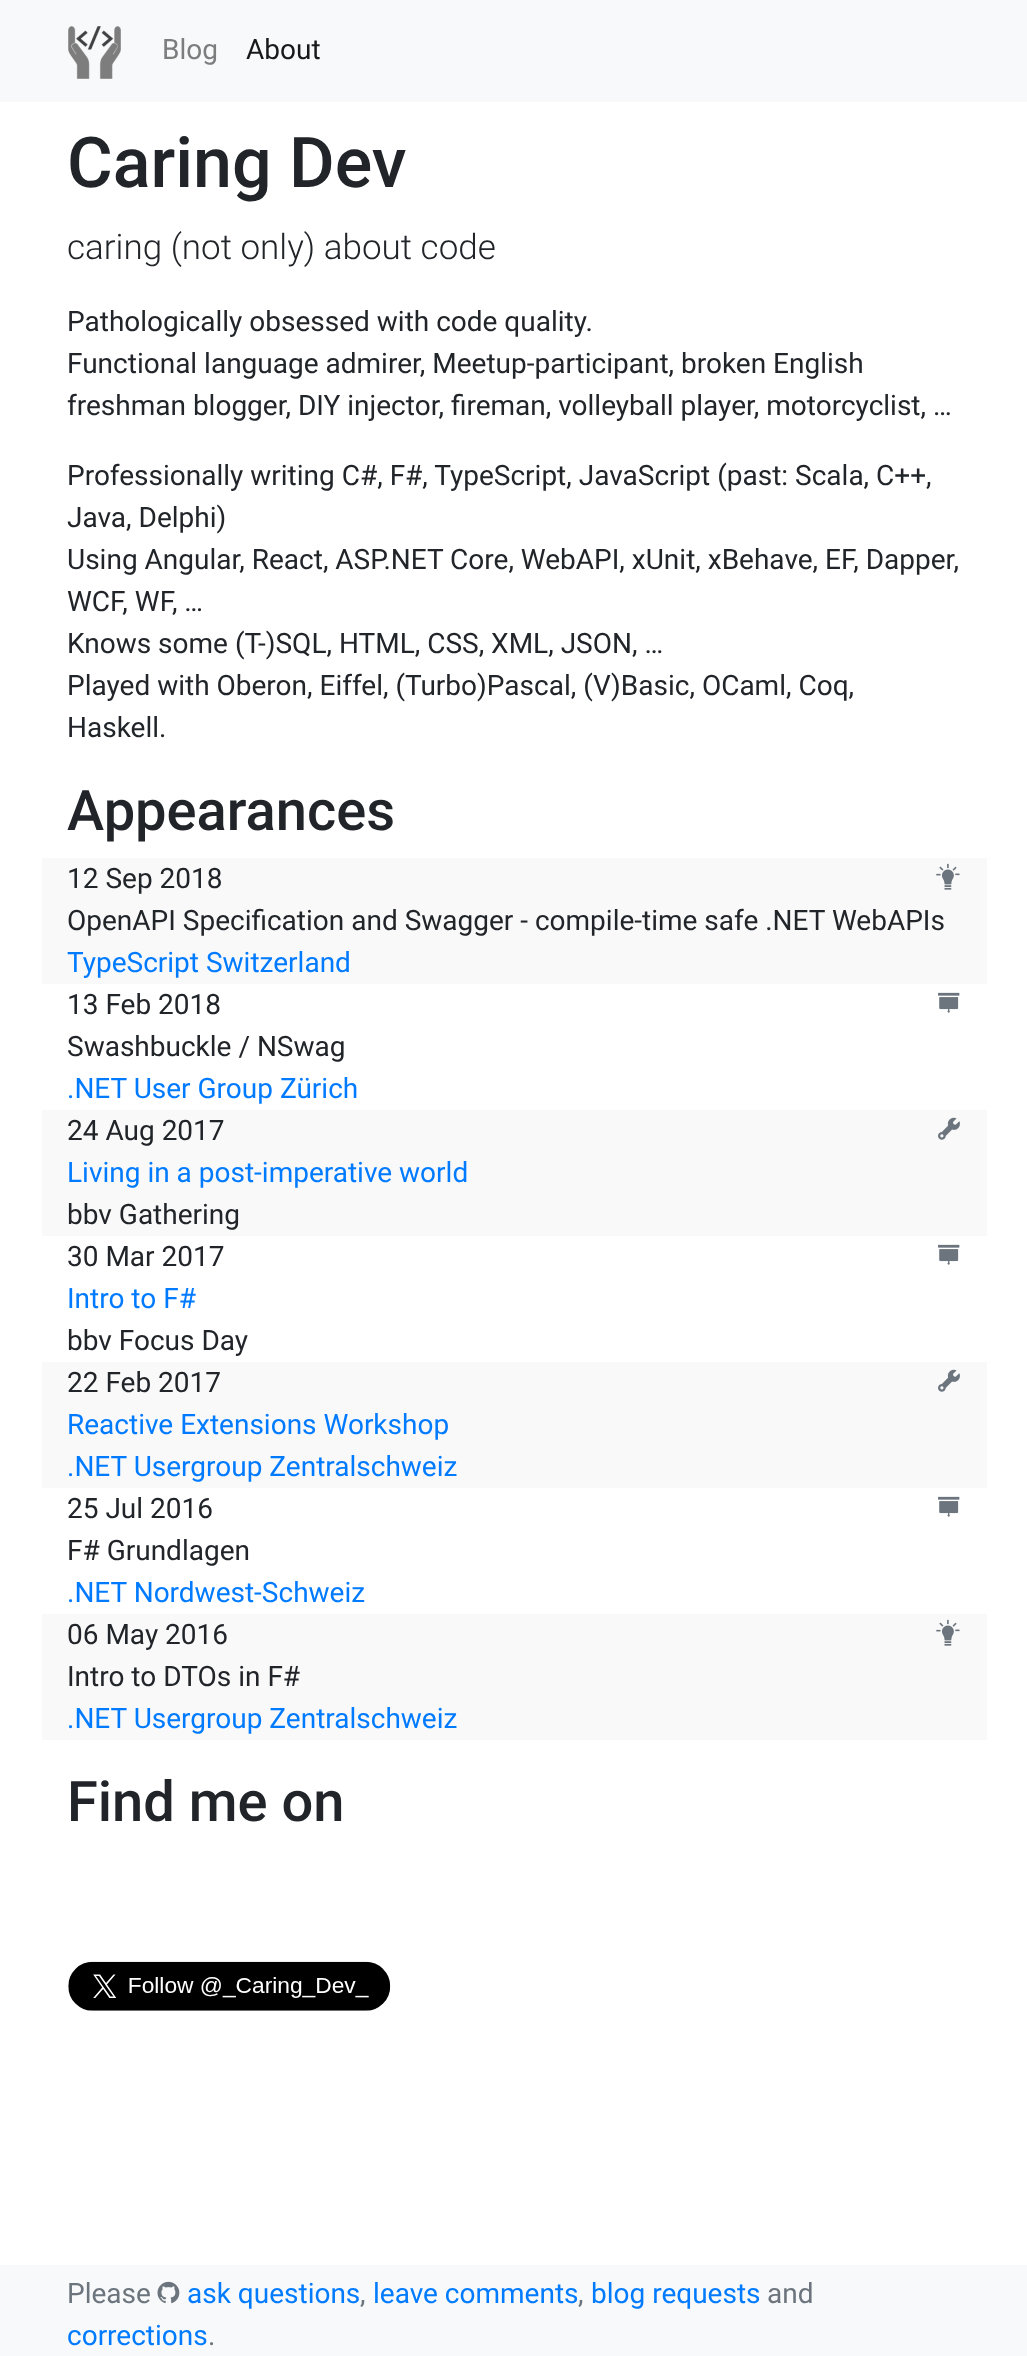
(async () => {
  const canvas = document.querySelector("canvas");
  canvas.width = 1027;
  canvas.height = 2356;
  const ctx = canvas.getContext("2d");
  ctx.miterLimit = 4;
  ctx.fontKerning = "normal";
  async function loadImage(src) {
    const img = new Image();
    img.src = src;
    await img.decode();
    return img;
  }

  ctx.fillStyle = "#ffffff";
  ctx.fillRect(0, 0, 1027, 2356);
  ctx.fillStyle = "#f8f9fa";
  ctx.fillRect(0, 0, 1027, 102);
  ctx.drawImage(await loadImage("img/1.png"), 68, 26, 53, 53);
  ctx.fillStyle = "#f9f9f9";
  ctx.fillRect(42, 858, 945, 126);
  ctx.drawImage(await loadImage("img/2.png"), 936, 863, 24, 27);
  ctx.drawImage(await loadImage("img/3.png"), 938, 992, 22, 21);
  ctx.fillRect(42, 1110, 945, 126);
  ctx.drawImage(await loadImage("img/4.png"), 938, 1117, 22, 23);
  ctx.drawImage(await loadImage("img/3.png"), 938, 1244, 22, 21);
  ctx.fillRect(42, 1362, 945, 126);
  ctx.drawImage(await loadImage("img/4.png"), 938, 1369, 22, 23);
  ctx.drawImage(await loadImage("img/3.png"), 938, 1496, 22, 21);
  ctx.fillRect(42, 1614, 945, 126);
  ctx.drawImage(await loadImage("img/2.png"), 936, 1619, 24, 27);
  ctx.drawImage(await loadImage("img/5.png"), 68, 1961, 323, 50);
  ctx.fillStyle = "#f8f9fa";
  ctx.fillRect(0, 2265, 1027, 91);
  ctx.drawImage(await loadImage("img/6.png"), 157, 2281, 23, 23);
  ctx.font = "28px Roboto";
  ctx.fillStyle = "#7c7d7d";
  ctx.fillText("Blog", 162, 59);
  ctx.fillStyle = "#191919";
  ctx.fillText("About", 246, 59);
  ctx.font = "500 70px Roboto";
  ctx.fillStyle = "#212529";
  ctx.fillText("Caring Dev", 67, 187);
  ctx.font = "300 35px Roboto";
  ctx.fillText("caring (not only) about code", 67, 259);
  ctx.font = "28px Roboto";
  for (const [text, x, y] of [
    ["Pathologically obsessed with code quality.", 67, 331],
    ["Functional language admirer, Meetup-participant, broken English", 67, 373],
    ["freshman blogger, DIY injector, fireman, volleyball player, motorcyclist, …", 67, 415],
    ["Professionally writing C#, F#, TypeScript, JavaScript (past: Scala, C++,", 67, 485],
    ["Java, Delphi)", 67, 527],
    ["Using Angular, React, ASP.NET Core, WebAPI, xUnit, xBehave, EF, Dapper,", 67, 569],
    ["WCF, WF, …", 67, 611],
    ["Knows some (T-)SQL, HTML, CSS, XML, JSON, …", 67, 653],
    ["Played with Oberon, Eiffel, (Turbo)Pascal, (V)Basic, OCaml, Coq,", 67, 695],
    ["Haskell.", 67, 737],
  ]) {
    ctx.fillText(text, x, y);
  }
  ctx.font = "500 56px Roboto";
  ctx.fillText("Appearances", 67, 830);
  ctx.font = "28px Roboto";
  ctx.fillText("12 Sep 2018", 67, 888);
  ctx.fillText("OpenAPI Specification and Swagger - compile-time safe .NET WebAPIs", 67, 930);
  ctx.fillStyle = "#007bff";
  ctx.fillText("TypeScript Switzerland", 67, 972);
  ctx.fillStyle = "#212529";
  ctx.fillText("13 Feb 2018", 67, 1014);
  ctx.fillText("Swashbuckle / NSwag", 67, 1056);
  ctx.fillStyle = "#007bff";
  ctx.fillText(".NET User Group Zürich", 67, 1098);
  ctx.fillStyle = "#212529";
  ctx.fillText("24 Aug 2017", 67, 1140);
  ctx.fillStyle = "#007bff";
  ctx.fillText("Living in a post-imperative world", 67, 1182);
  ctx.fillStyle = "#212529";
  ctx.fillText("bbv Gathering", 67, 1224);
  ctx.fillText("30 Mar 2017", 67, 1266);
  ctx.fillStyle = "#007bff";
  ctx.fillText("Intro to F#", 67, 1308);
  ctx.fillStyle = "#212529";
  ctx.fillText("bbv Focus Day", 67, 1350);
  ctx.fillText("22 Feb 2017", 67, 1392);
  ctx.fillStyle = "#007bff";
  ctx.fillText("Reactive Extensions Workshop", 67, 1434);
  ctx.fillText(".NET Usergroup Zentralschweiz", 67, 1476);
  ctx.fillStyle = "#212529";
  ctx.fillText("25 Jul 2016", 67, 1518);
  ctx.fillText("F# Grundlagen", 67, 1560);
  ctx.fillStyle = "#007bff";
  ctx.fillText(".NET Nordwest-Schweiz", 67, 1602);
  ctx.fillStyle = "#212529";
  ctx.fillText("06 May 2016", 67, 1644);
  ctx.fillText("Intro to DTOs in F#", 67, 1686);
  ctx.fillStyle = "#007bff";
  ctx.fillText(".NET Usergroup Zentralschweiz", 67, 1728);
  ctx.font = "500 56px Roboto";
  ctx.fillStyle = "#212529";
  ctx.fillText("Find me on", 67, 1821);
  ctx.font = "28px Roboto";
  ctx.fillStyle = "#6c757d";
  ctx.fillText("Please", 67, 2303);
  ctx.fillStyle = "#007bff";
  ctx.fillText("ask questions", 187, 2303);
  ctx.fillStyle = "#6c757d";
  ctx.fillText(",", 360, 2303);
  ctx.fillStyle = "#007bff";
  ctx.fillText("leave comments", 373, 2303);
  ctx.fillStyle = "#6c757d";
  ctx.fillText(",", 578, 2303);
  ctx.fillStyle = "#007bff";
  ctx.fillText("blog requests", 591, 2303);
  ctx.fillStyle = "#6c757d";
  ctx.fillText("and", 767, 2303);
  ctx.fillStyle = "#007bff";
  ctx.fillText("corrections", 67, 2345);
  ctx.fillStyle = "#6c757d";
  ctx.fillText(".", 208, 2345);
})();
